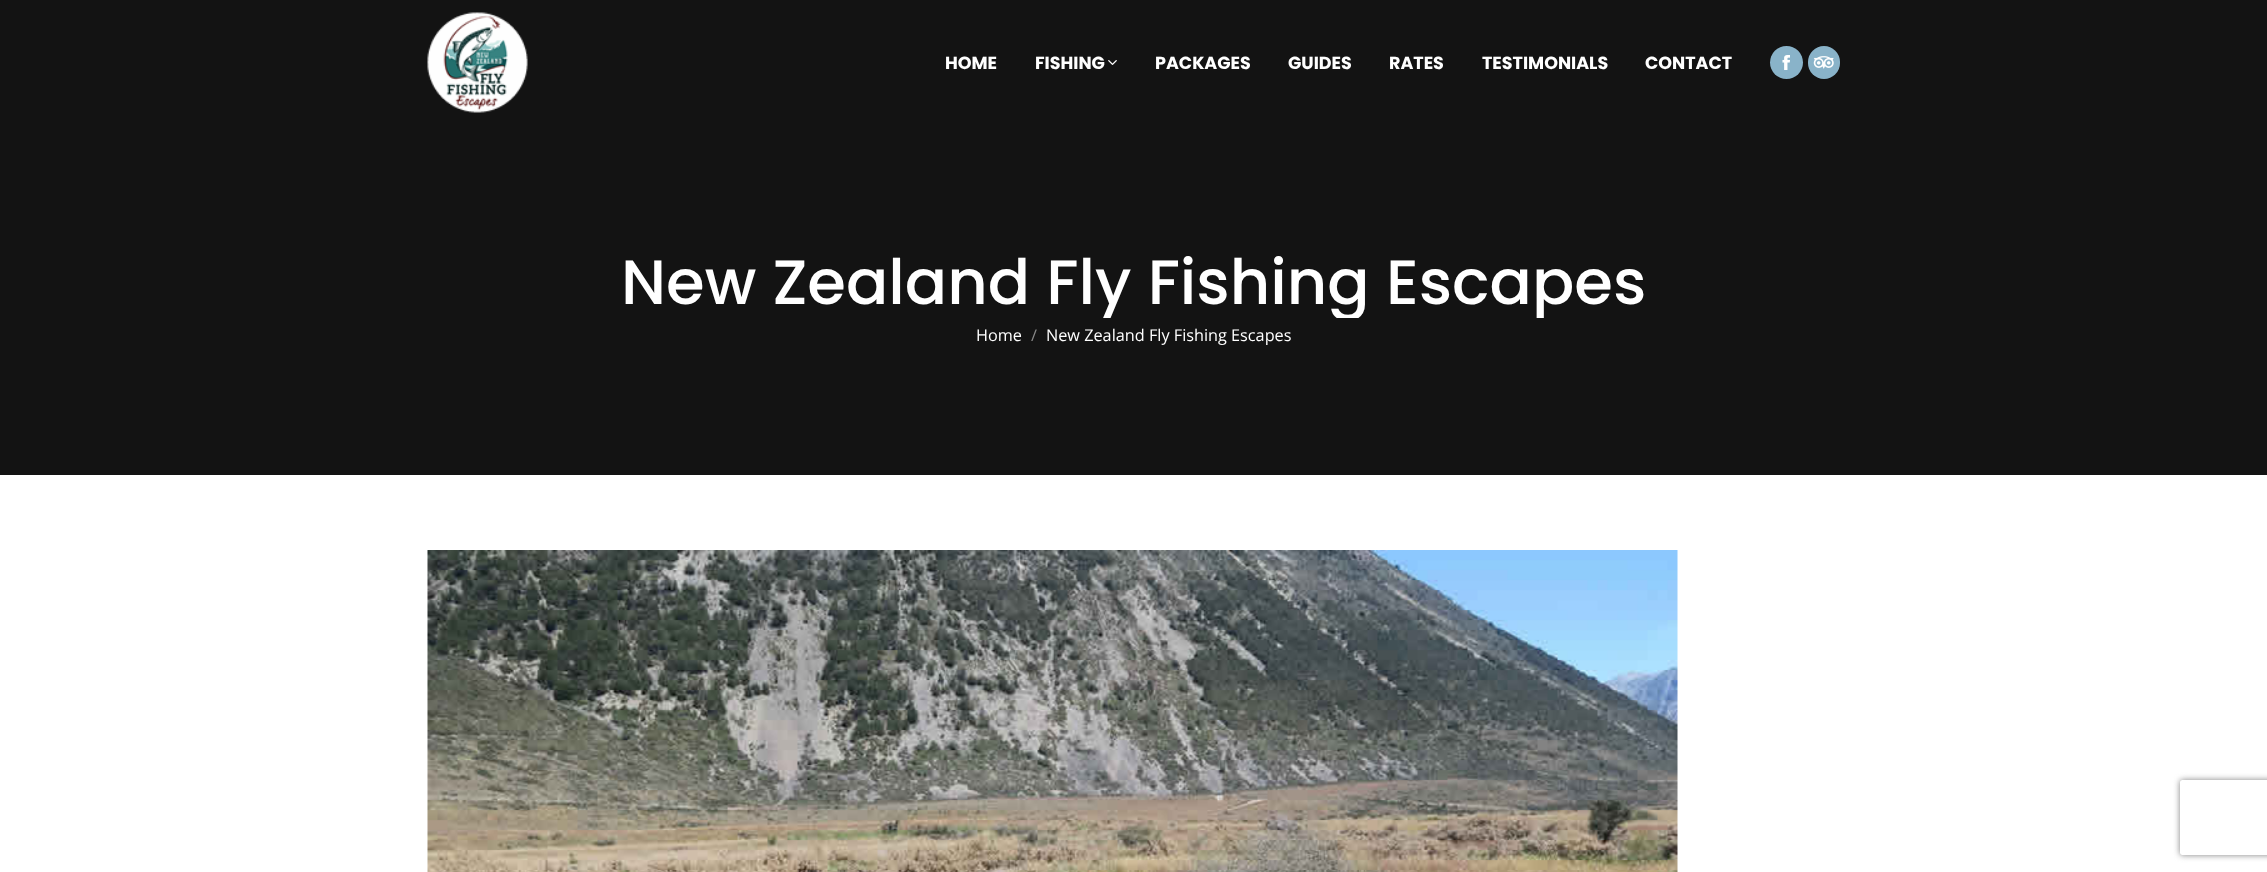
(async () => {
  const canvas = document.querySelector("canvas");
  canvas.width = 2267;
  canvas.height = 872;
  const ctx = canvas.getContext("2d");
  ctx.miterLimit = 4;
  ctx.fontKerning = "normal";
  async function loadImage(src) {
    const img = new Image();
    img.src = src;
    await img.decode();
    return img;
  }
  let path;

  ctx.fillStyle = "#ffffff";
  ctx.fillRect(0, 0, 2267, 872);
  ctx.fillStyle = "#131313";
  ctx.fillRect(0, 0, 2267, 475);
  ctx.drawImage(await loadImage("img/1.png"), 427, 12, 101, 101);
  ctx.drawImage(await loadImage("img/2.png"), 1108, 60, 9, 5);
  ctx.fillStyle = "#89b3c9";
  ctx.beginPath();
  ctx.arc(1786.5, 62.5, 16.5, 0, Math.PI * 2);
  ctx.fill();
  ctx.drawImage(await loadImage("img/3.png"), 1782, 55, 8, 15);
  ctx.beginPath();
  ctx.roundRect(1808, 46, 32, 33, 16);
  ctx.fill();
  ctx.drawImage(await loadImage("img/4.png"), 1813, 56, 21, 13);
  ctx.drawImage(await loadImage("img/5.png"), 427, 550, 1251, 322);
  ctx.save();
  path = new Path2D("M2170 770H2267V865H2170ZM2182.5 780H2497.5C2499 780 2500 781 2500 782.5V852.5C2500 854 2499 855 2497.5 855H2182.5C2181 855 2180 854 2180 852.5V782.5C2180 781 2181 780 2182.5 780Z");
  ctx.clip(path, "evenodd");
  ctx.fillStyle = "#808080";
  ctx.filter = "blur(3px)";
  ctx.beginPath();
  ctx.roundRect(2180, 780, 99, 75, 2.5);
  ctx.fill();
  ctx.filter = "none";
  ctx.restore();
  ctx.font = "bold 17.5px Poppins";
  ctx.fillStyle = "#ffffff";
  for (const [text, x, y] of [
    ["HOME", 945, 69],
    ["FISHING", 1035, 69],
    ["PACKAGES", 1155, 69],
    ["GUIDES", 1288, 69],
    ["RATES", 1389, 69],
    ["TESTIMONIALS", 1482, 69],
    ["CONTACT", 1645, 69],
  ]) {
    ctx.fillText(text, x, y);
  }
  ctx.save();
  ctx.beginPath();
  ctx.rect(621, 249, 1025, 69);
  ctx.clip();
  ctx.font = "500 62.5px Poppins";
  ctx.fillText("New Zealand Fly Fishing Escapes", 621, 304);
  ctx.restore();
  ctx.font = "16.25px Open Sans";
  ctx.fillText("Home", 976, 341);
  ctx.fillStyle = "#898989";
  ctx.fillText("/", 1031, 341);
  ctx.fillStyle = "#ffffff";
  ctx.fillText("New Zealand Fly Fishing Escapes", 1046, 341);
})();
